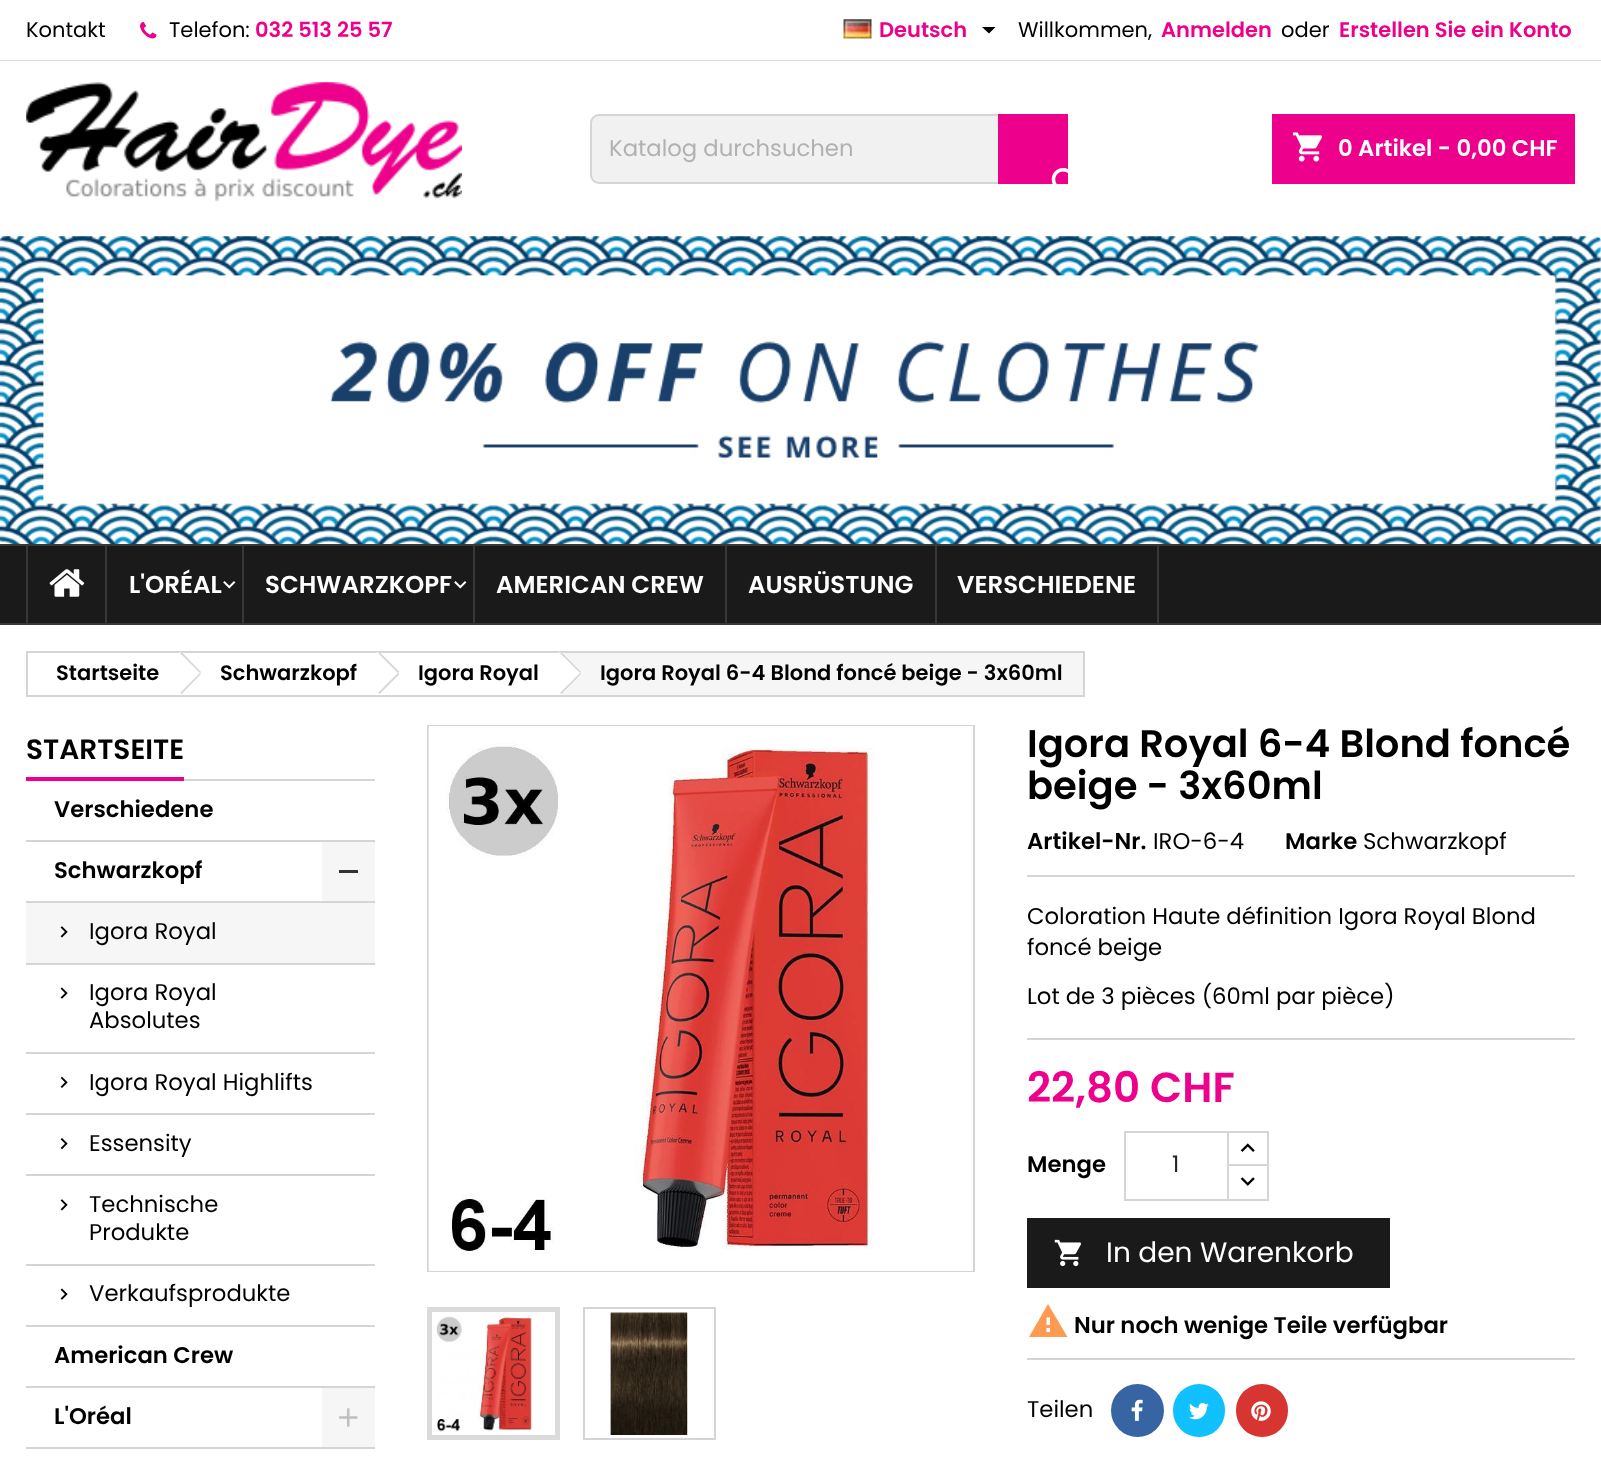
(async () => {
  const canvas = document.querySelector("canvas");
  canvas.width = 1601;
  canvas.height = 1479;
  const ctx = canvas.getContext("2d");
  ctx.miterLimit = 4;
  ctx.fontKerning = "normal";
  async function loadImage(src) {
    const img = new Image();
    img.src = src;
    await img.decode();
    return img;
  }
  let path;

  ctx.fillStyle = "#ffffff";
  ctx.fillRect(0, 0, 1601, 1479);
  ctx.fillStyle = "#dedede";
  ctx.fillRect(0, 60, 1601, 1);
  ctx.drawImage(await loadImage("img/1.png"), 140, 22, 17, 17);
  ctx.drawImage(await loadImage("img/2.png"), 843, 19, 29, 20);
  ctx.fillStyle = "#000000";
  path = new Path2D("M982 27H995.5L989 33.5Z");
  ctx.fill(path);
  ctx.drawImage(await loadImage("img/3.png"), 26, 82, 436, 120);
  ctx.fillStyle = "#f1f1f1";
  ctx.beginPath();
  ctx.roundRect(591, 115, 476, 68, 8);
  ctx.fill();
  ctx.strokeStyle = "#d6d4d4";
  ctx.lineWidth = 2;
  ctx.stroke();
  ctx.fillStyle = "#ec008c";
  ctx.fillRect(998, 114, 70, 70);
  ctx.drawImage(await loadImage("img/4.png"), 1051, 168, 17, 16);
  ctx.fillRect(1272, 114, 303, 70);
  ctx.drawImage(await loadImage("img/5.png"), 1292, 132, 31, 30);
  ctx.drawImage(await loadImage("img/6.png"), 0, 236, 1601, 308);
  for (const [x, y, w, h, color] of [
    [0, 546, 1601, 77, "#1b1a1b"],
    [0, 544, 1601, 2, "#383838"],
    [0, 623, 1601, 2, "#383838"],
    [26, 546, 2, 77, "#383838"],
  ]) {
    ctx.fillStyle = color;
    ctx.fillRect(x, y, w, h);
  }
  ctx.drawImage(await loadImage("img/7.png"), 49, 569, 36, 28);
  ctx.fillRect(105, 546, 2, 77);
  ctx.drawImage(await loadImage("img/8.png"), 223, 581, 13, 8);
  ctx.fillRect(242, 546, 2, 77);
  ctx.drawImage(await loadImage("img/8.png"), 454, 581, 13, 8);
  for (const [x, y, w, h, color] of [
    [473, 546, 2, 77, "#383838"],
    [725, 546, 2, 77, "#383838"],
    [1157, 546, 2, 77, "#383838"],
    [935, 546, 2, 77, "#383838"],
  ]) {
    ctx.fillStyle = color;
    ctx.fillRect(x, y, w, h);
  }
  ctx.strokeRect(27, 652, 1057, 44);
  ctx.fillStyle = "#ffffff";
  path = new Path2D("M183 653L200 671C201 672 201 674 200 675L183 693C181 694 179 694 178 693L160 675C159 674 159 672 160 671L178 653C179 652 181 652 183 653Z");
  ctx.fill(path);
  ctx.fillStyle = "#d6d4d4";
  path = new Path2D("M181.5 652L201 672L200 673L180 653ZM200 673L201 674L181.5 694L180 693Z");
  ctx.fill(path);
  ctx.fillStyle = "#ffffff";
  path = new Path2D("M381 653L398 671C399 672 399 674 398 675L381 693C379 694 377 694 376 693L358 675C357 674 357 672 358 671L376 653C377 652 379 652 381 653Z");
  ctx.fill(path);
  ctx.fillStyle = "#d6d4d4";
  path = new Path2D("M379.5 652L399.5 672L398 673L378 653ZM398 673L399.5 674L379.5 694L378 693Z");
  ctx.fill(path);
  ctx.fillStyle = "#f6f6f6";
  ctx.fillRect(562, 653, 521, 42);
  ctx.fillStyle = "#ffffff";
  path = new Path2D("M563 653L580 671C581 672 581 674 580 675L563 693C561 694 559 694 558 693L540 675C539 674 539 672 540 671L558 653C559 652 561 652 563 653Z");
  ctx.fill(path);
  ctx.fillStyle = "#d6d4d4";
  path = new Path2D("M561.5 652L581 672L580 673L560 653ZM580 673L581 674L561.5 694L560 693Z");
  ctx.fill(path);
  for (const [x, y, w, h, color] of [
    [184, 779, 191, 2, "#d6d4d4"],
    [26, 777, 158, 4, "#ec008c"],
    [26, 840, 349, 2, "#d6d4d4"],
    [26, 901, 349, 2, "#d6d4d4"],
    [322, 842, 53, 59, "#f6f6f6"],
    [339, 870, 19, 3, "#333333"],
    [26, 903, 349, 60, "#f6f6f6"],
    [26, 963, 349, 2, "#d6d4d4"],
  ]) {
    ctx.fillStyle = color;
    ctx.fillRect(x, y, w, h);
  }
  ctx.drawImage(await loadImage("img/9.png"), 60, 926, 8, 12);
  ctx.fillRect(26, 1052, 349, 2);
  ctx.drawImage(await loadImage("img/10.png"), 60, 987, 8, 12);
  ctx.fillRect(26, 1113, 349, 2);
  ctx.drawImage(await loadImage("img/11.png"), 60, 1076, 8, 12);
  ctx.fillRect(26, 1174, 349, 2);
  ctx.drawImage(await loadImage("img/12.png"), 60, 1138, 8, 12);
  ctx.fillRect(26, 1264, 349, 2);
  ctx.drawImage(await loadImage("img/13.png"), 60, 1199, 8, 12);
  ctx.fillRect(26, 1325, 349, 2);
  ctx.drawImage(await loadImage("img/10.png"), 60, 1288, 8, 12);
  for (const [x, y, w, h, color] of [
    [26, 1386, 349, 2, "#d6d4d4"],
    [26, 1447, 349, 2, "#d6d4d4"],
    [322, 1388, 53, 59, "#f6f6f6"],
  ]) {
    ctx.fillStyle = color;
    ctx.fillRect(x, y, w, h);
  }
  ctx.drawImage(await loadImage("img/14.png"), 339, 1408, 19, 19);
  ctx.strokeRect(428, 726, 546, 545);
  ctx.fillStyle = "#ffffff";
  ctx.fillRect(429, 726, 544, 545);
  ctx.drawImage(await loadImage("img/15.png"), 428, 726, 447, 545);
  ctx.strokeStyle = "#dbdbdb";
  ctx.lineWidth = 5;
  ctx.strokeRect(429.5, 1309.5, 128, 128);
  ctx.strokeStyle = "#d6d4d4";
  ctx.lineWidth = 2;
  ctx.strokeRect(584, 1308, 131, 131);
  ctx.drawImage(await loadImage("img/16.png"), 436, 1316, 98, 116);
  ctx.drawImage(await loadImage("img/17.png"), 610, 1312, 79, 123);
  ctx.fillStyle = "#d6d4d4";
  ctx.fillRect(1027, 875, 548, 2);
  ctx.fillRect(1027, 1038, 548, 2);
  ctx.strokeRect(1228, 1132, 40, 34);
  ctx.fillStyle = "#ffffff";
  ctx.fillRect(1229, 1166, 38, 1);
  ctx.strokeRect(1228, 1165, 40, 35);
  ctx.strokeRect(1125, 1132, 103, 68);
  ctx.drawImage(await loadImage("img/18.png"), 1240, 1143, 15, 9);
  ctx.drawImage(await loadImage("img/19.png"), 1240, 1177, 15, 9);
  ctx.fillStyle = "#1b1a1b";
  ctx.fillRect(1027, 1218, 363, 70);
  ctx.drawImage(await loadImage("img/20.png"), 1054, 1239, 27, 28);
  ctx.fillStyle = "#ff9a52";
  path = new Path2D("M1050 1325V1317.5H1046.5V1325ZM1050 1332V1328H1046.5V1332ZM1029 1337L1048 1304L1067.5 1337Z");
  ctx.fill(path);
  ctx.fillStyle = "#d6d4d4";
  ctx.fillRect(1027, 1358, 548, 2);
  ctx.fillStyle = "#3765a3";
  ctx.beginPath();
  ctx.arc(1137.5, 1410.5, 26.5, 0, Math.PI * 2);
  ctx.fill();
  ctx.drawImage(await loadImage("img/21.png"), 1131, 1399, 12, 22);
  ctx.fillStyle = "#11c1ff";
  ctx.beginPath();
  ctx.roundRect(1173, 1384, 52, 53, 26);
  ctx.fill();
  ctx.drawImage(await loadImage("img/22.png"), 1189, 1403, 20, 17);
  ctx.fillStyle = "#d73532";
  ctx.beginPath();
  ctx.roundRect(1236, 1384, 52, 53, 26);
  ctx.fill();
  ctx.drawImage(await loadImage("img/23.png"), 1251, 1401, 20, 20);
  ctx.font = "21px Poppins";
  ctx.fillStyle = "#000000";
  ctx.fillText("Kontakt", 26, 37);
  ctx.fillText("Telefon:", 169, 37);
  ctx.font = "600 21px Poppins";
  ctx.fillStyle = "#ec008c";
  ctx.fillText("032 513 25 57", 255, 37);
  ctx.fillText("Deutsch", 879, 37);
  ctx.font = "21px Poppins";
  ctx.fillStyle = "#000000";
  ctx.fillText("Willkommen,", 1018, 37);
  ctx.font = "600 21px Poppins";
  ctx.fillStyle = "#ec008c";
  ctx.fillText("Anmelden", 1161, 37);
  ctx.font = "21px Poppins";
  ctx.fillStyle = "#000000";
  ctx.fillText("oder", 1281, 37);
  ctx.font = "600 21px Poppins";
  ctx.fillStyle = "#ec008c";
  ctx.fillText("Erstellen Sie ein Konto", 1339, 37);
  ctx.font = "22.75px Poppins";
  ctx.fillStyle = "#b1b1b1";
  ctx.fillText("Katalog durchsuchen", 609, 156);
  ctx.font = "600 22.75px Poppins";
  ctx.fillStyle = "#ffffff";
  ctx.fillText("0 Artikel - 0,00 CHF", 1338, 156);
  ctx.font = "600 24.5px Poppins";
  for (const [text, x, y] of [
    ["L'ORÉAL", 129, 593],
    ["SCHWARZKOPF", 265, 593],
    ["AMERICAN CREW", 496, 593],
    ["AUSRÜSTUNG", 748, 593],
    ["VERSCHIEDENE", 957, 593],
  ]) {
    ctx.fillText(text, x, y);
  }
  ctx.font = "600 21px Poppins";
  ctx.fillStyle = "#000000";
  for (const [text, x, y] of [
    ["Startseite", 56, 680],
    ["Schwarzkopf", 220, 680],
    ["Igora Royal", 418, 680],
    ["Igora Royal 6-4 Blond foncé beige - 3x60ml", 600, 680],
  ]) {
    ctx.fillText(text, x, y);
  }
  ctx.font = "600 28px Poppins";
  ctx.fillText("STARTSEITE", 26, 759);
  ctx.font = "600 22.75px Poppins";
  ctx.fillText("Verschiedene", 54, 817);
  ctx.fillText("Schwarzkopf", 54, 878);
  ctx.font = "22.75px Poppins";
  for (const [text, x, y] of [
    ["Igora Royal", 89, 939],
    ["Igora Royal", 89, 1000],
    ["Absolutes", 89, 1028],
    ["Igora Royal Highlifts", 89, 1090],
    ["Essensity", 89, 1151],
    ["Technische", 89, 1212],
    ["Produkte", 89, 1240],
    ["Verkaufsprodukte", 89, 1301],
  ]) {
    ctx.fillText(text, x, y);
  }
  ctx.font = "600 22.75px Poppins";
  ctx.fillText("American Crew", 54, 1363);
  ctx.fillText("L'Oréal", 54, 1424);
  ctx.font = "600 38.5px Poppins";
  ctx.fillText("Igora Royal 6-4 Blond foncé", 1027, 757);
  ctx.fillText("beige - 3x60ml", 1027, 799);
  ctx.font = "600 22.75px Poppins";
  ctx.fillText("Artikel-Nr.", 1027, 849);
  ctx.font = "22.75px Poppins";
  ctx.fillText("IRO-6-4", 1153, 849);
  ctx.font = "600 22.75px Poppins";
  ctx.fillText("Marke", 1285, 849);
  ctx.font = "22.75px Poppins";
  for (const [text, x, y] of [
    ["Schwarzkopf", 1363, 849],
    ["Coloration Haute définition Igora Royal Blond", 1027, 924],
    ["foncé beige", 1027, 955],
    ["Lot de 3 pièces (60ml par pièce)", 1027, 1004],
  ]) {
    ctx.fillText(text, x, y);
  }
  ctx.font = "600 42px Poppins";
  ctx.fillStyle = "#ec008c";
  ctx.fillText("22,80 CHF", 1027, 1102);
  ctx.font = "600 22.75px Poppins";
  ctx.fillStyle = "#000000";
  ctx.fillText("Menge", 1027, 1172);
  ctx.font = "22.75px Poppins";
  ctx.fillStyle = "#232323";
  ctx.fillText("1", 1172, 1172);
  ctx.font = "28px Poppins";
  ctx.fillStyle = "#ffffff";
  ctx.fillText("In den Warenkorb", 1106, 1262);
  ctx.font = "600 22.75px Poppins";
  ctx.fillStyle = "#000000";
  ctx.fillText("Nur noch wenige Teile verfügbar", 1074, 1333);
  ctx.font = "22.75px Poppins";
  ctx.fillText("Teilen", 1027, 1417);
})();
